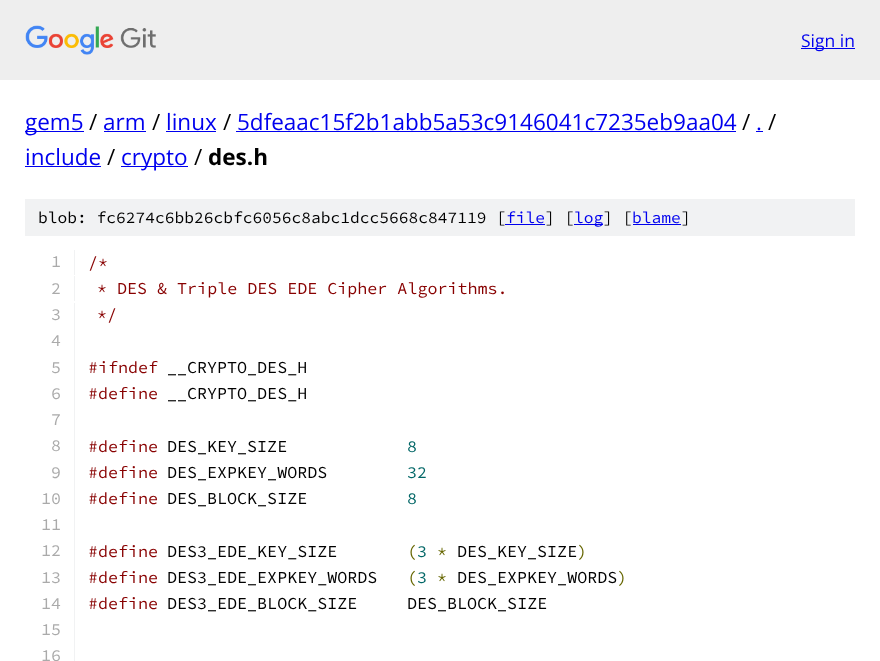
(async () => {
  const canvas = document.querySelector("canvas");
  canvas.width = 880;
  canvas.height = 661;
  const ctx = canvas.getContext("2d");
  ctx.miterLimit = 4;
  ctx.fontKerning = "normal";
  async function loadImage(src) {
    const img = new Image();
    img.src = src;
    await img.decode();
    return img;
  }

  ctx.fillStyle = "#ffffff";
  ctx.fillRect(0, 0, 880, 661);
  ctx.fillStyle = "#eeeeee";
  ctx.fillRect(0, 0, 880, 80);
  ctx.drawImage(await loadImage("img/1.png"), 25, 25, 131, 30);
  for (const [x, y, w, h, color] of [
    [801, 48, 54, 1, "#0000ee"],
    [25, 131, 59, 1, "#0000ee"],
    [104, 131, 42, 1, "#0000ee"],
    [166, 131, 50, 1, "#0000ee"],
    [236, 131, 500, 1, "#0000ee"],
    [756, 131, 7, 1, "#0000ee"],
    [25, 166, 76, 1, "#0000ee"],
    [121, 166, 67, 1, "#0000ee"],
    [25, 199, 830, 37, "#f1f2f3"],
    [505, 224, 40, 1, "#0000ee"],
    [574, 224, 29, 1, "#0000ee"],
    [633, 224, 48, 1, "#0000ee"],
    [74, 250, 1, 25, "#f1f2f3"],
    [74, 276, 1, 25, "#f1f2f3"],
    [74, 303, 1, 358, "#f1f2f3"],
  ]) {
    ctx.fillStyle = color;
    ctx.fillRect(x, y, w, h);
  }
  ctx.font = "17.5px Open Sans";
  ctx.fillStyle = "#0000ee";
  ctx.fillText("Sign in", 801, 47);
  ctx.font = "22.5px Open Sans";
  ctx.fillText("gem5", 25, 130);
  ctx.fillStyle = "#000000";
  ctx.fillText("/", 89, 130);
  ctx.fillStyle = "#0000ee";
  ctx.fillText("arm", 103, 130);
  ctx.fillStyle = "#000000";
  ctx.fillText("/", 152, 130);
  ctx.fillStyle = "#0000ee";
  ctx.fillText("linux", 166, 130);
  ctx.fillStyle = "#000000";
  ctx.fillText("/", 223, 130);
  ctx.fillStyle = "#0000ee";
  ctx.fillText("5dfeaac15f2b1abb5a53c9146041c7235eb9aa04", 237, 130);
  ctx.fillStyle = "#000000";
  ctx.fillText("/", 742, 130);
  ctx.fillStyle = "#0000ee";
  ctx.fillText(".", 756, 130);
  ctx.fillStyle = "#000000";
  ctx.fillText("/", 768, 130);
  ctx.fillStyle = "#0000ee";
  ctx.fillText("include", 25, 165);
  ctx.fillStyle = "#000000";
  ctx.fillText("/", 107, 165);
  ctx.fillStyle = "#0000ee";
  ctx.fillText("crypto", 121, 165);
  ctx.fillStyle = "#000000";
  ctx.fillText("/", 194, 165);
  ctx.font = "bold 22.5px Open Sans";
  ctx.fillText("des.h", 208, 165);
  ctx.font = "200 16.25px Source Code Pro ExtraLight";
  ctx.fillText("blob: fc6274c6bb26cbfc6056c8abc1dcc5668c847119 [", 38, 223);
  ctx.fillStyle = "#0000ee";
  ctx.fillText("file", 506, 223);
  ctx.fillStyle = "#000000";
  ctx.fillText("] [", 545, 223);
  ctx.fillStyle = "#0000ee";
  ctx.fillText("log", 574, 223);
  ctx.fillStyle = "#000000";
  ctx.fillText("] [", 603, 223);
  ctx.fillStyle = "#0000ee";
  ctx.fillText("blame", 632, 223);
  ctx.fillStyle = "#000000";
  ctx.fillText("]", 681, 223);
  ctx.font = "200 16.7px Source Code Pro ExtraLight";
  ctx.fillStyle = "#aaaaaa";
  ctx.fillText("1", 51, 267);
  ctx.fillStyle = "#880000";
  ctx.fillText("/*", 88, 268);
  ctx.fillStyle = "#aaaaaa";
  ctx.fillText("2", 51, 294);
  ctx.fillStyle = "#880000";
  ctx.fillText("* DES & Triple DES EDE Cipher Algorithms.", 97, 294);
  ctx.fillStyle = "#aaaaaa";
  ctx.fillText("3", 51, 320);
  ctx.fillStyle = "#880000";
  ctx.fillText("*/", 97, 320);
  ctx.fillStyle = "#aaaaaa";
  ctx.fillText("4", 51, 346);
  ctx.fillText("5", 51, 373);
  ctx.fillStyle = "#880000";
  ctx.fillText("#ifndef", 88, 373);
  ctx.fillStyle = "#000000";
  ctx.fillText("__CRYPTO_DES_H", 167, 373);
  ctx.fillStyle = "#aaaaaa";
  ctx.fillText("6", 51, 399);
  ctx.fillStyle = "#880000";
  ctx.fillText("#define", 88, 399);
  ctx.fillStyle = "#000000";
  ctx.fillText("__CRYPTO_DES_H", 167, 399);
  ctx.fillStyle = "#aaaaaa";
  ctx.fillText("7", 51, 425);
  ctx.fillText("8", 51, 451);
  ctx.fillStyle = "#880000";
  ctx.fillText("#define", 88, 452);
  ctx.fillStyle = "#000000";
  ctx.fillText("DES_KEY_SIZE", 167, 452);
  ctx.fillStyle = "#006666";
  ctx.fillText("8", 407, 452);
  ctx.fillStyle = "#aaaaaa";
  ctx.fillText("9", 51, 478);
  ctx.fillStyle = "#880000";
  ctx.fillText("#define", 88, 478);
  ctx.fillStyle = "#000000";
  ctx.fillText("DES_EXPKEY_WORDS", 167, 478);
  ctx.fillStyle = "#006666";
  ctx.fillText("32", 407, 478);
  ctx.fillStyle = "#aaaaaa";
  ctx.fillText("10", 41, 504);
  ctx.fillStyle = "#880000";
  ctx.fillText("#define", 88, 504);
  ctx.fillStyle = "#000000";
  ctx.fillText("DES_BLOCK_SIZE", 167, 504);
  ctx.fillStyle = "#006666";
  ctx.fillText("8", 407, 504);
  ctx.fillStyle = "#aaaaaa";
  ctx.fillText("11", 41, 530);
  ctx.fillText("12", 41, 556);
  ctx.fillStyle = "#880000";
  ctx.fillText("#define", 88, 557);
  ctx.fillStyle = "#000000";
  ctx.fillText("DES3_EDE_KEY_SIZE", 167, 557);
  ctx.fillStyle = "#666600";
  ctx.fillText("(", 407, 557);
  ctx.fillStyle = "#006666";
  ctx.fillText("3", 417, 557);
  ctx.fillStyle = "#666600";
  ctx.fillText("*", 437, 557);
  ctx.fillStyle = "#000000";
  ctx.fillText("DES_KEY_SIZE", 457, 557);
  ctx.fillStyle = "#666600";
  ctx.fillText(")", 577, 557);
  ctx.fillStyle = "#aaaaaa";
  ctx.fillText("13", 41, 583);
  ctx.fillStyle = "#880000";
  ctx.fillText("#define", 88, 583);
  ctx.fillStyle = "#000000";
  ctx.fillText("DES3_EDE_EXPKEY_WORDS", 167, 583);
  ctx.fillStyle = "#666600";
  ctx.fillText("(", 407, 583);
  ctx.fillStyle = "#006666";
  ctx.fillText("3", 417, 583);
  ctx.fillStyle = "#666600";
  ctx.fillText("*", 437, 583);
  ctx.fillStyle = "#000000";
  ctx.fillText("DES_EXPKEY_WORDS", 457, 583);
  ctx.fillStyle = "#666600";
  ctx.fillText(")", 617, 583);
  ctx.fillStyle = "#aaaaaa";
  ctx.fillText("14", 41, 609);
  ctx.fillStyle = "#880000";
  ctx.fillText("#define", 88, 609);
  ctx.fillStyle = "#000000";
  ctx.fillText("DES3_EDE_BLOCK_SIZE", 167, 609);
  ctx.fillText("DES_BLOCK_SIZE", 407, 609);
  ctx.fillStyle = "#aaaaaa";
  ctx.fillText("15", 41, 635);
  ctx.fillText("16", 41, 661);
})();
